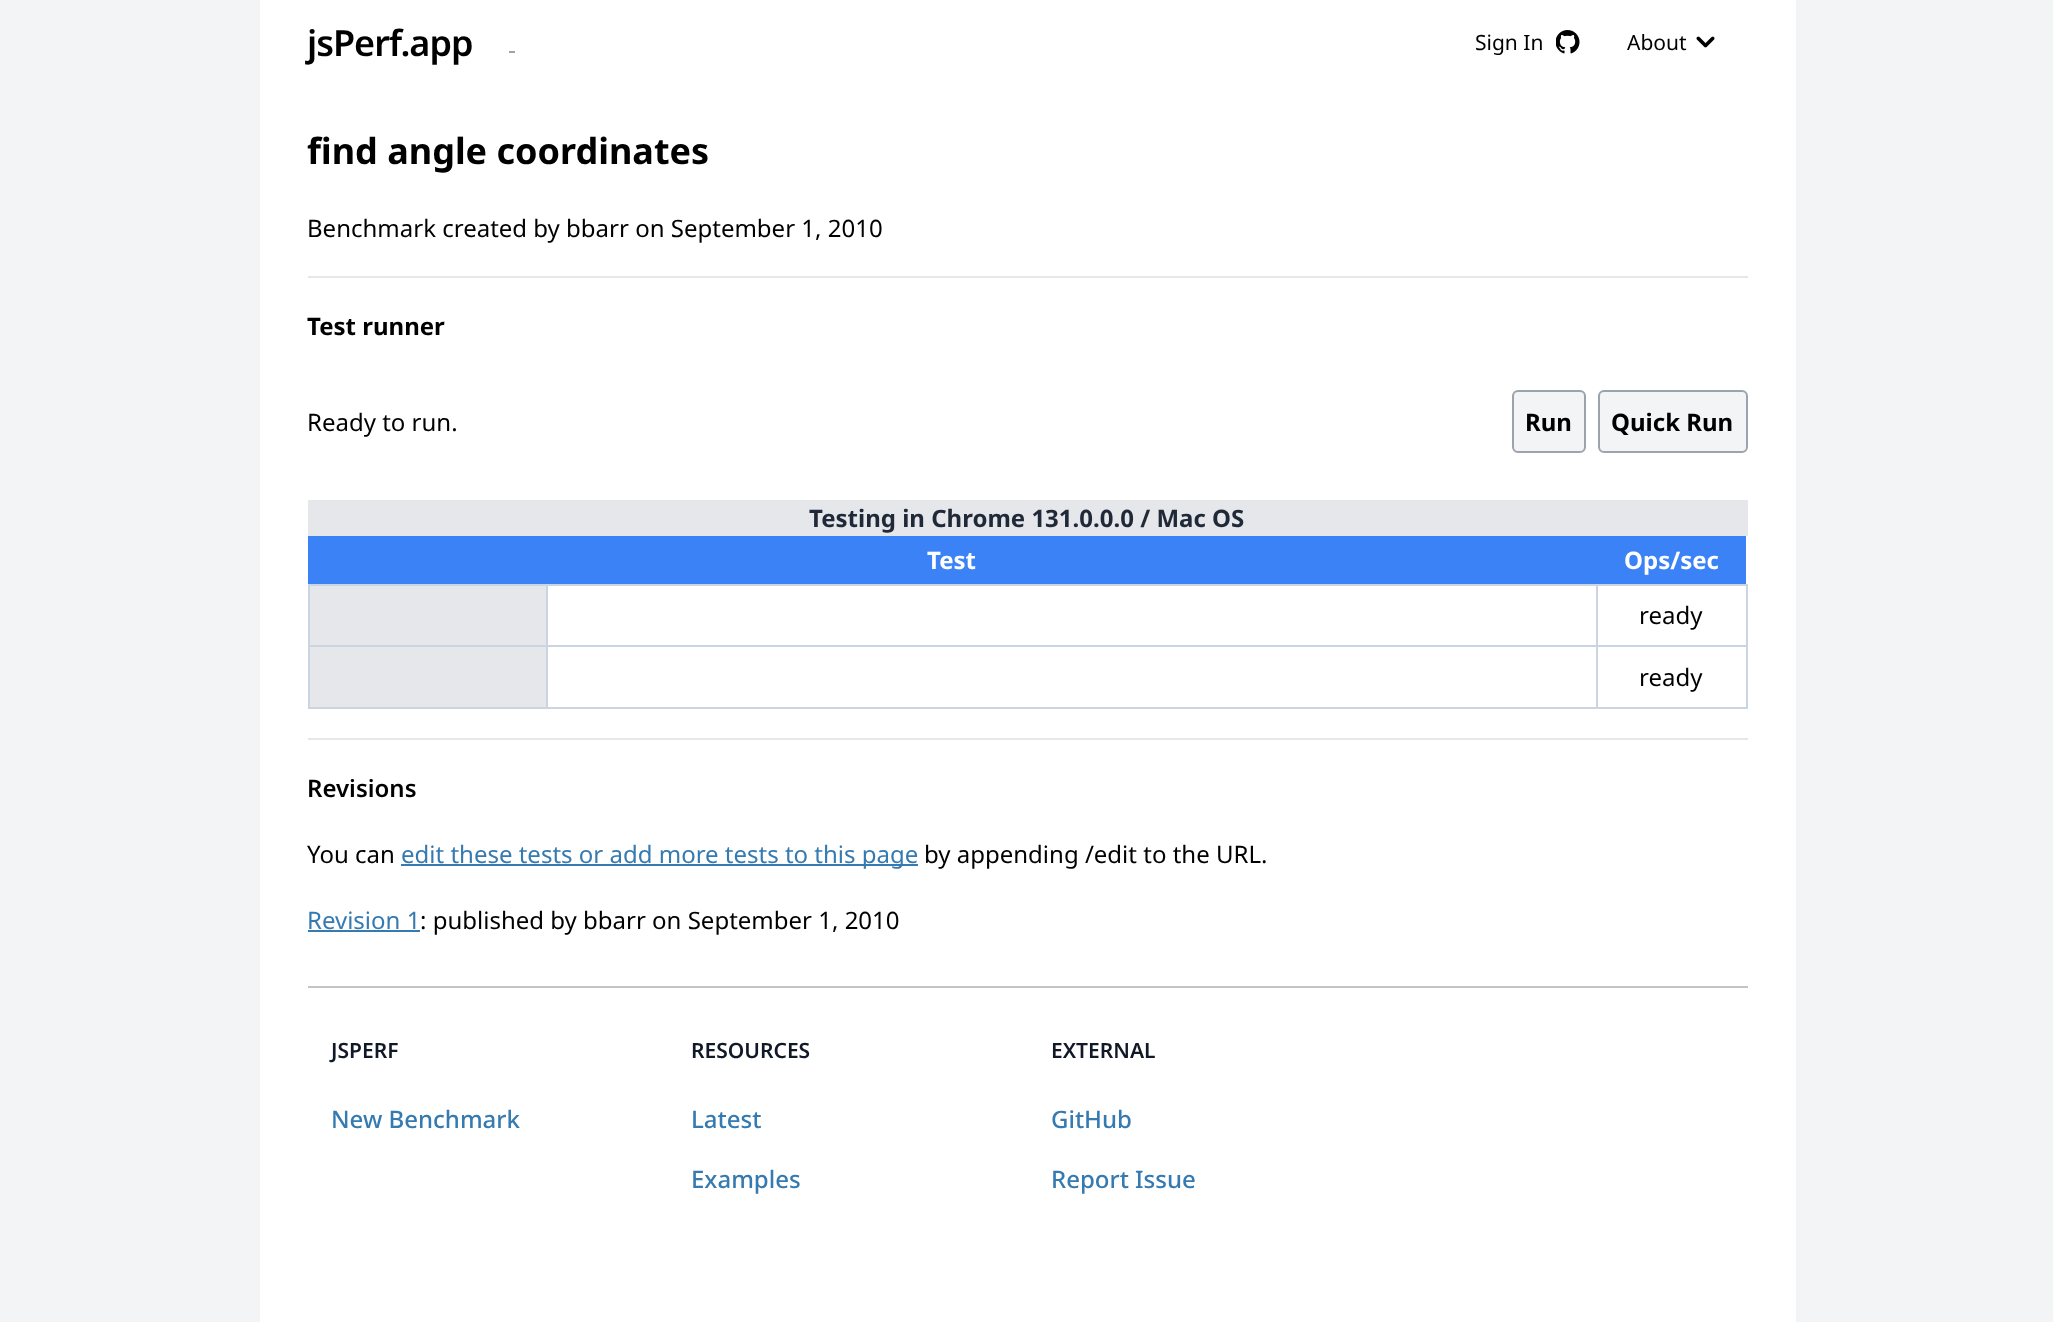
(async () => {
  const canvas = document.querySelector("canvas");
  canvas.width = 2053;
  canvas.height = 1322;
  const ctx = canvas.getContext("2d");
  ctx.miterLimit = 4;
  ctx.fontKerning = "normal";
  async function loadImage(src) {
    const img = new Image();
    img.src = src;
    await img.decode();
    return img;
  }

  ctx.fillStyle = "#f3f4f6";
  ctx.fillRect(0, 0, 2053, 1322);
  ctx.fillStyle = "#ffffff";
  ctx.fillRect(260, 0, 1536, 1322);
  ctx.drawImage(await loadImage("img/1.png"), 1556, 30, 24, 24);
  ctx.drawImage(await loadImage("img/2.png"), 1696, 36, 19, 12);
  ctx.fillStyle = "#9ca3af";
  ctx.fillRect(509, 51, 6, 2);
  ctx.fillStyle = "#e5e7eb";
  ctx.fillRect(308, 276, 1440, 2);
  ctx.fillStyle = "#f3f4f6";
  ctx.beginPath();
  ctx.roundRect(1513, 391, 72, 61, 5);
  ctx.fill();
  ctx.strokeStyle = "#9ca3af";
  ctx.lineWidth = 2;
  ctx.stroke();
  ctx.beginPath();
  ctx.roundRect(1599, 391, 148, 61, 5);
  ctx.fill();
  ctx.stroke();
  for (const [x, y, w, h, color] of [
    [308, 500, 1440, 36, "#e5e7eb"],
    [308, 536, 1438, 48, "#3b82f6"],
    [310, 586, 236, 59, "#e5e7eb"],
    [1596, 584, 152, 2, "#cbd5e1"],
    [1596, 645, 152, 2, "#cbd5e1"],
    [1746, 645, 2, 63, "#cbd5e1"],
    [1596, 707, 152, 2, "#cbd5e1"],
    [1596, 645, 2, 63, "#cbd5e1"],
    [546, 645, 1052, 2, "#cbd5e1"],
    [1596, 584, 2, 63, "#cbd5e1"],
    [546, 584, 1052, 2, "#cbd5e1"],
    [546, 707, 1052, 2, "#cbd5e1"],
    [546, 645, 2, 63, "#cbd5e1"],
    [308, 645, 240, 2, "#cbd5e1"],
    [546, 584, 2, 63, "#cbd5e1"],
    [308, 584, 240, 2, "#cbd5e1"],
    [308, 707, 240, 2, "#cbd5e1"],
    [308, 645, 2, 63, "#cbd5e1"],
    [308, 584, 2, 63, "#cbd5e1"],
    [1746, 584, 2, 63, "#cbd5e1"],
    [310, 647, 236, 60, "#e5e7eb"],
    [308, 738, 1440, 2, "#e5e7eb"],
    [401, 864, 517, 2, "#357ab0"],
    [308, 930, 112, 2, "#357ab0"],
    [308, 986, 1440, 2, "#c4c4c4"],
  ]) {
    ctx.fillStyle = color;
    ctx.fillRect(x, y, w, h);
  }
  ctx.letterSpacing = "-1px";
  ctx.font = "600 36px Noto Sans";
  ctx.fillStyle = "#000000";
  ctx.fillText("jsPerf.app", 307, 56);
  ctx.letterSpacing = "0px";
  ctx.font = "21px Noto Sans";
  ctx.fillText("Sign In", 1475, 50);
  ctx.fillText("About", 1627, 50);
  ctx.font = "bold 36px Noto Sans";
  ctx.fillText("find angle coordinates", 307, 164);
  ctx.font = "24px Noto Sans";
  ctx.fillText("Benchmark created by bbarr on September 1, 2010", 307, 237);
  ctx.font = "bold 24px Noto Sans";
  ctx.fillText("Test runner", 307, 335);
  ctx.font = "24px Noto Sans";
  ctx.fillText("Ready to run.", 307, 431);
  ctx.font = "bold 24px Noto Sans";
  ctx.fillText("Run", 1525, 431);
  ctx.fillText("Quick Run", 1611, 431);
  ctx.fillStyle = "#1f2937";
  ctx.fillText("Testing in Chrome 131.0.0.0 / Mac OS", 809, 527);
  ctx.fillStyle = "#ffffff";
  ctx.fillText("Test", 927, 569);
  ctx.fillText("Ops/sec", 1624, 569);
  ctx.font = "24px Noto Sans";
  ctx.fillStyle = "#000000";
  ctx.fillText("ready", 1639, 624);
  ctx.fillText("ready", 1639, 686);
  ctx.font = "600 24px Noto Sans";
  ctx.fillText("Revisions", 307, 797);
  ctx.font = "24px Noto Sans";
  ctx.fillText("You can", 307, 863);
  ctx.fillStyle = "#357ab0";
  ctx.fillText("edit these tests or add more tests to this page", 401, 863);
  ctx.fillStyle = "#000000";
  ctx.fillText("by appending /edit to the URL.", 924, 863);
  ctx.fillStyle = "#357ab0";
  ctx.fillText("Revision 1", 307, 929);
  ctx.fillStyle = "#000000";
  ctx.fillText(": published by bbarr on September 1, 2010", 420, 929);
  ctx.font = "600 21px Noto Sans";
  ctx.fillStyle = "#111827";
  ctx.fillText("JSPERF", 331, 1058);
  ctx.font = "500 24px Noto Sans";
  ctx.fillStyle = "#357ab0";
  ctx.fillText("New Benchmark", 331, 1128);
  ctx.font = "600 21px Noto Sans";
  ctx.fillStyle = "#111827";
  ctx.fillText("RESOURCES", 691, 1058);
  ctx.font = "500 24px Noto Sans";
  ctx.fillStyle = "#357ab0";
  ctx.fillText("Latest", 691, 1128);
  ctx.fillText("Examples", 691, 1188);
  ctx.font = "600 21px Noto Sans";
  ctx.fillStyle = "#111827";
  ctx.fillText("EXTERNAL", 1051, 1058);
  ctx.font = "500 24px Noto Sans";
  ctx.fillStyle = "#357ab0";
  ctx.fillText("GitHub", 1051, 1128);
  ctx.fillText("Report Issue", 1051, 1188);
})();
